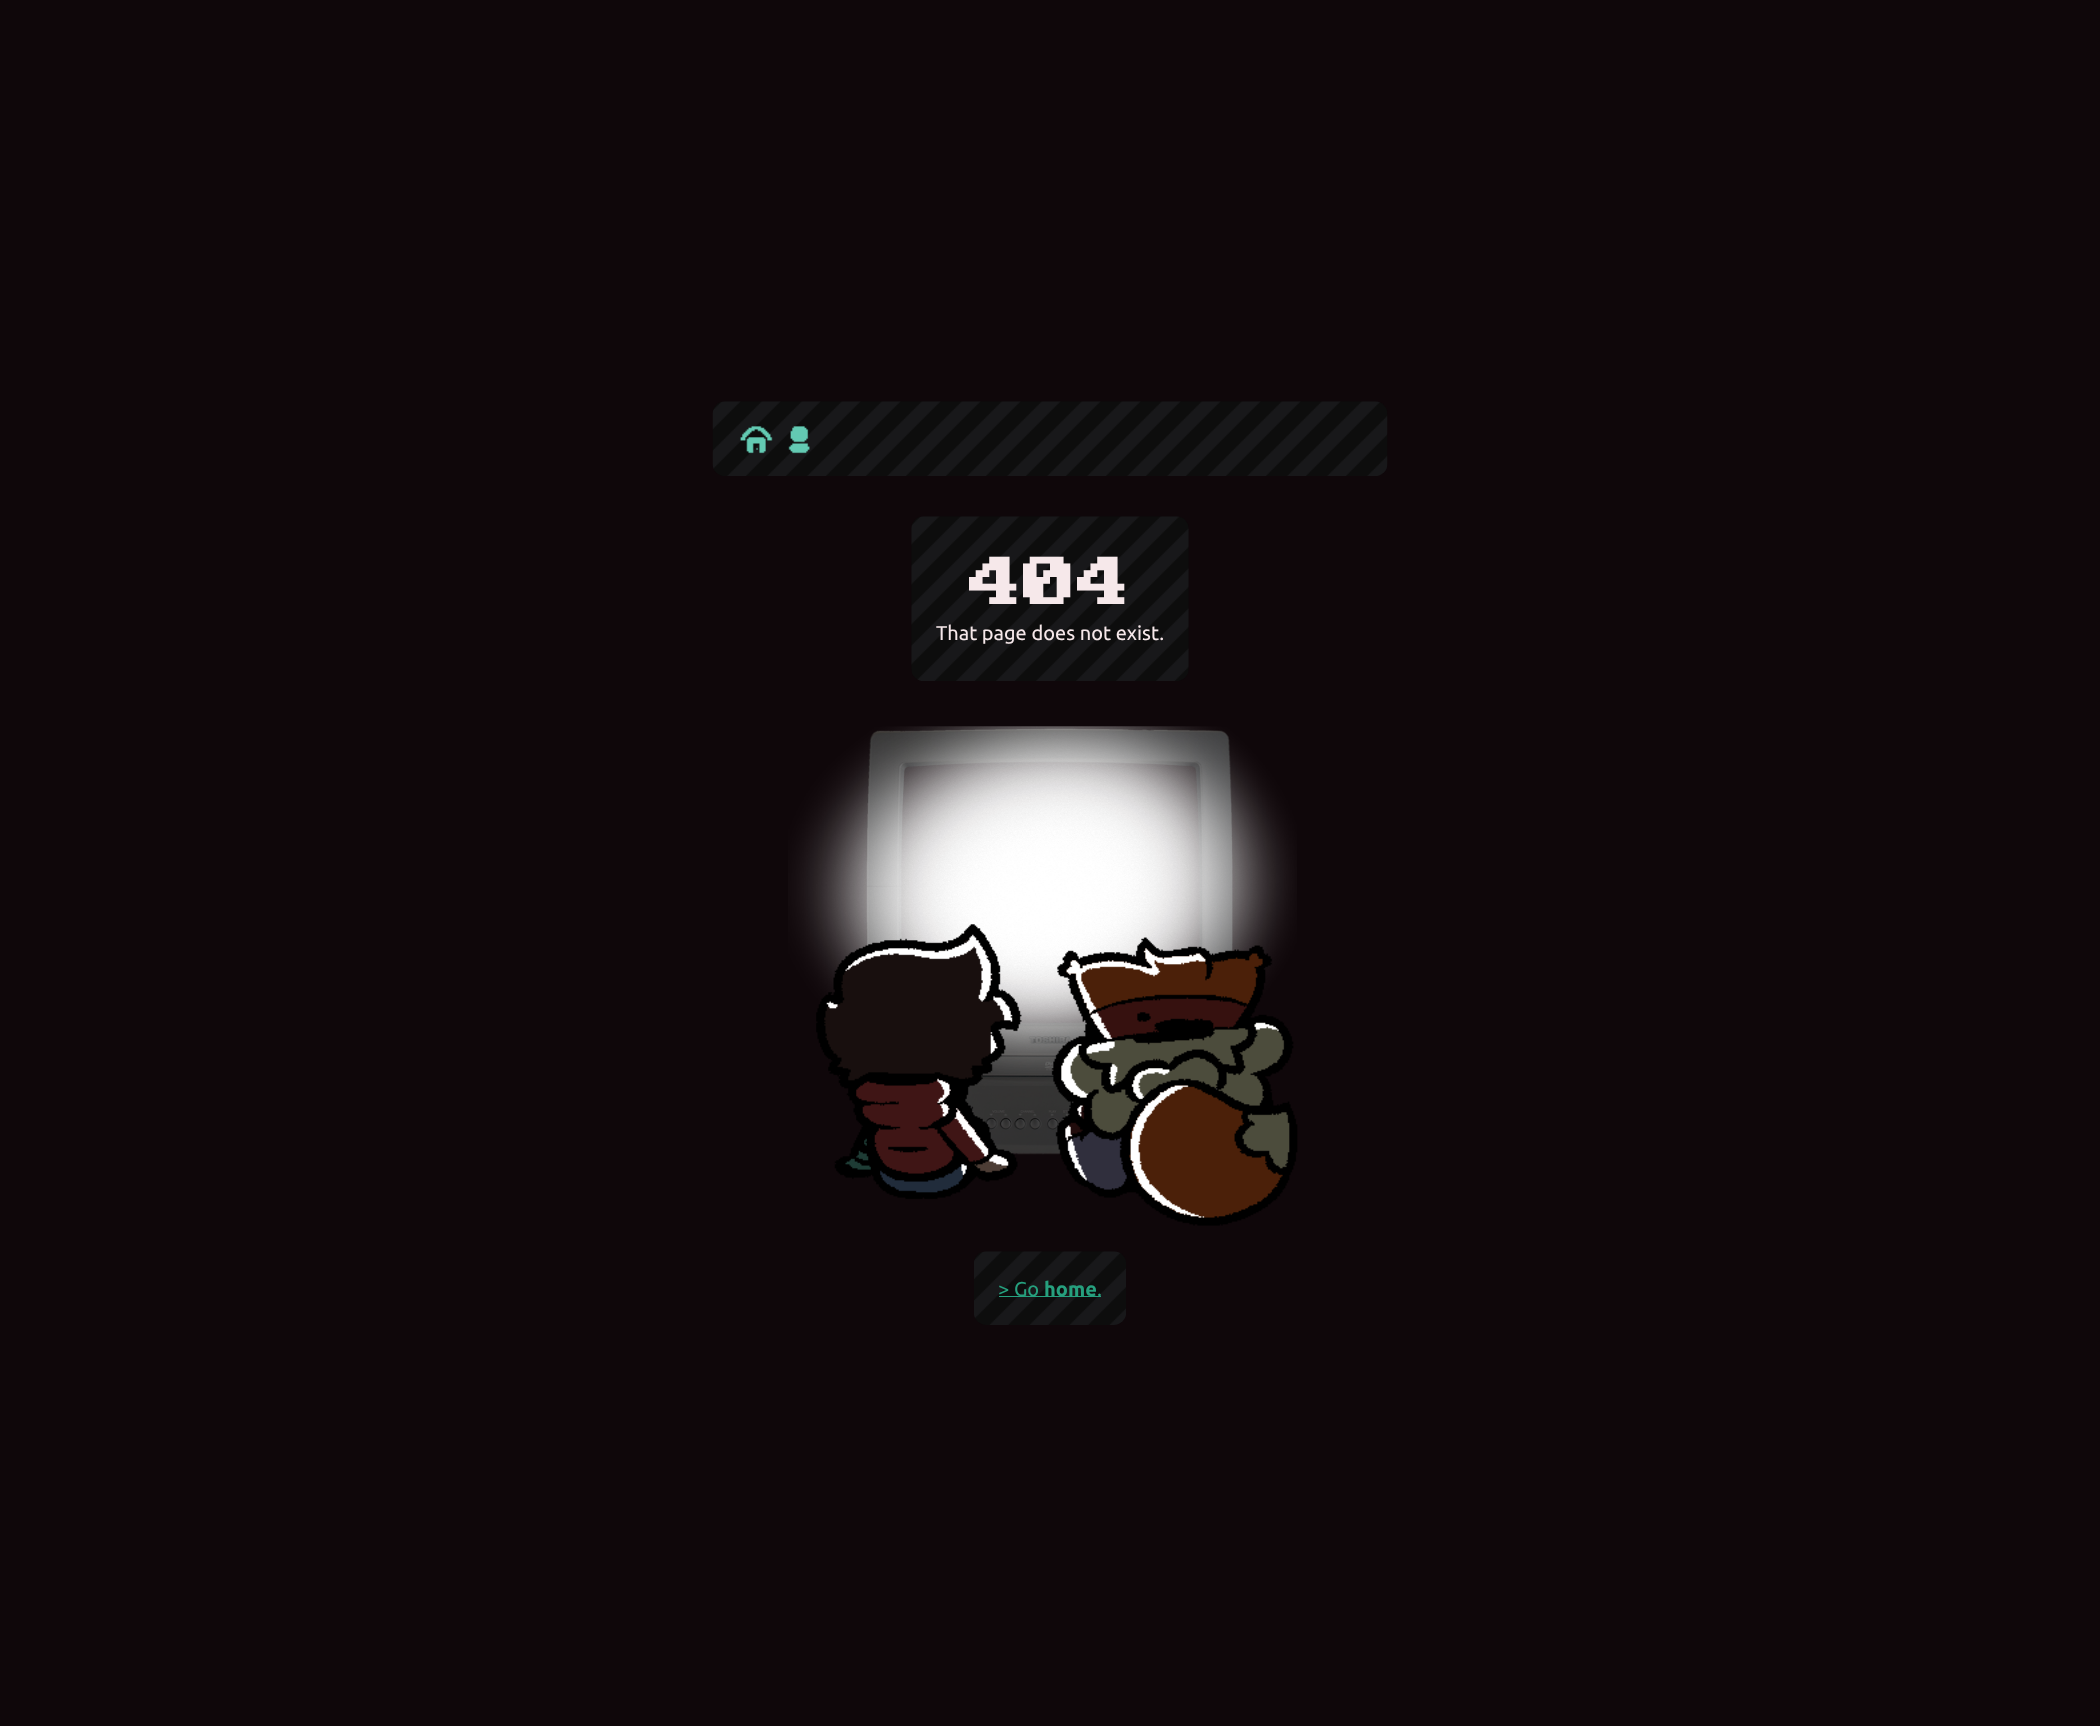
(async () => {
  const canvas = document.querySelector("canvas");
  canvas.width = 2100;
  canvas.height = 1726;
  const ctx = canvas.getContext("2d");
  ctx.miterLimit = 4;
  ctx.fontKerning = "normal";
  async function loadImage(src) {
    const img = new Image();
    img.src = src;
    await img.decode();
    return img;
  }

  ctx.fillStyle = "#0f070a";
  ctx.fillRect(0, 0, 2100, 1726);
  ctx.drawImage(await loadImage("img/1.png"), 712, 401, 676, 75);
  ctx.drawImage(await loadImage("img/2.png"), 740, 426, 33, 28);
  ctx.drawImage(await loadImage("img/3.png"), 788, 426, 22, 28);
  ctx.drawImage(await loadImage("img/4.png"), 911, 516, 278, 165);
  ctx.drawImage(await loadImage("img/6.png"), 866, 728, 367, 427);
  ctx.drawImage(await loadImage("img/5.png"), 788, 726, 509, 360);
  ctx.drawImage(await loadImage("img/7.png"), 816, 924, 482, 302);
  ctx.drawImage(await loadImage("img/8.png"), 826, 934, 453, 284);
  ctx.drawImage(await loadImage("img/9.png"), 974, 1251, 152, 74);
  ctx.fillStyle = "#26a07e";
  ctx.fillRect(999, 1296, 102, 1);
  ctx.font = "108px 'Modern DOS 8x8'";
  ctx.fillStyle = "#f6e8ea";
  ctx.fillText("404", 969, 604);
  ctx.font = "20px Ubuntu";
  ctx.fillText("That page does not exist.", 936, 640);
  ctx.fillStyle = "#26a07e";
  ctx.fillText("> Go", 998, 1296);
  ctx.font = "bold 20px Ubuntu";
  ctx.fillText("home", 1044, 1296);
  ctx.font = "20px Ubuntu";
  ctx.fillText(".", 1097, 1296);
})();
